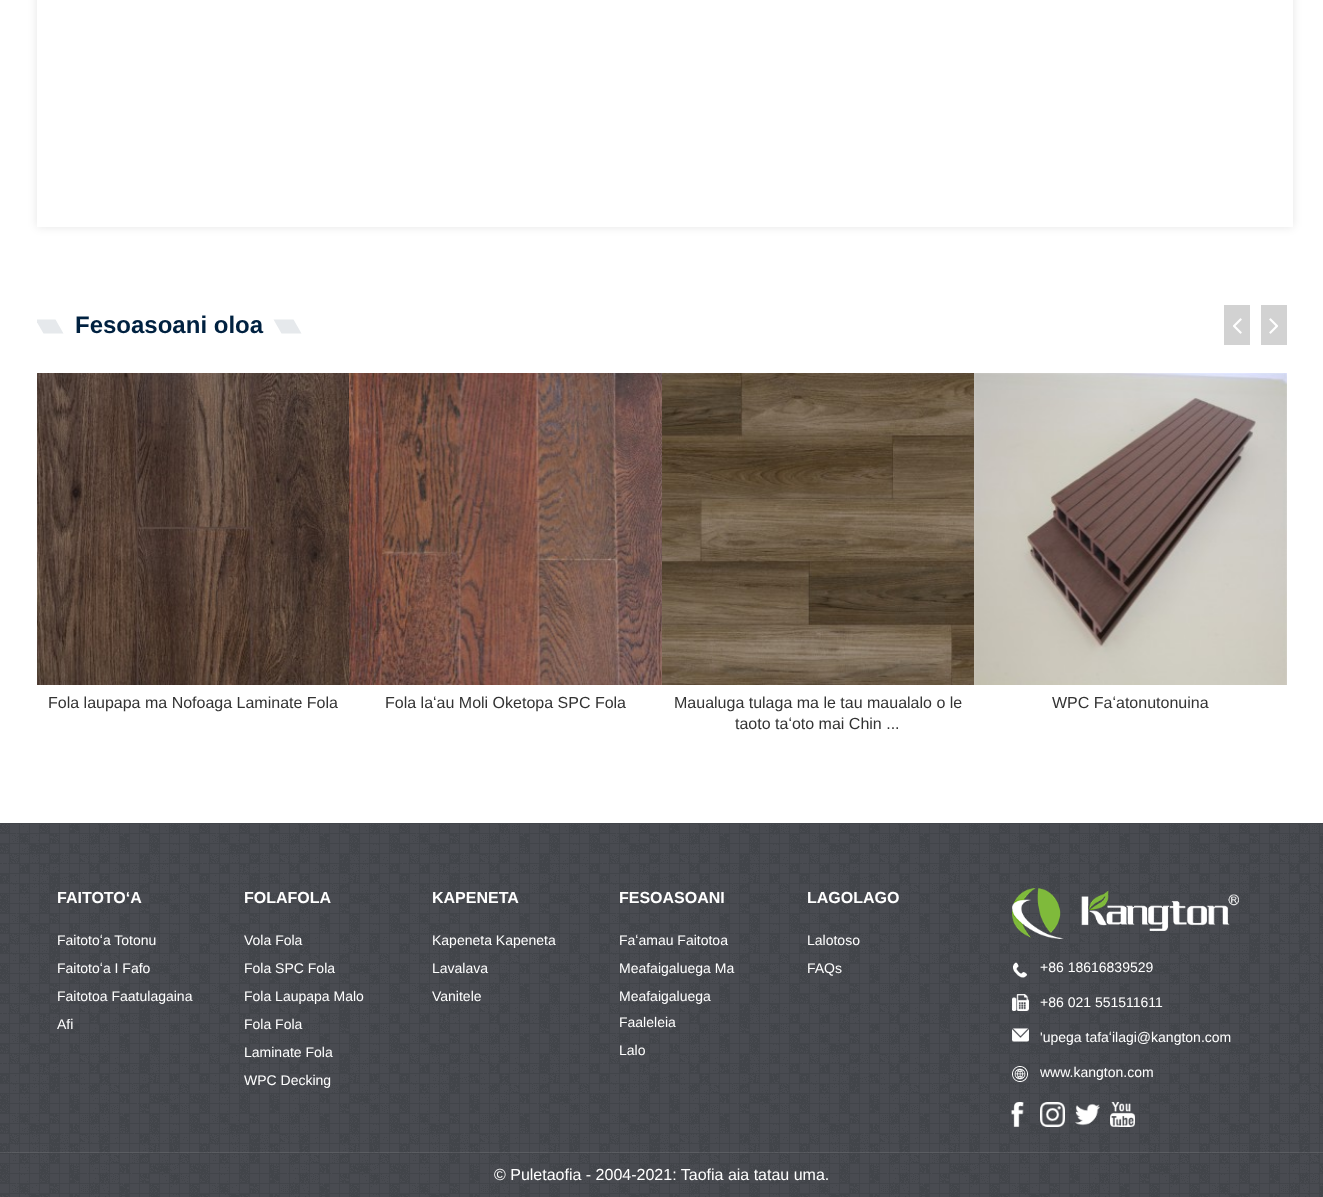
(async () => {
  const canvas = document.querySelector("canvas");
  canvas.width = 1323;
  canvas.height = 1197;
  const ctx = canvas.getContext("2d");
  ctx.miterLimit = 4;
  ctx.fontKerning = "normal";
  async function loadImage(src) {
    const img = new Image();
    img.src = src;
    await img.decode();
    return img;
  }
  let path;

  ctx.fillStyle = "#ffffff";
  ctx.fillRect(0, 0, 1323, 1197);
  ctx.save();
  path = new Path2D("M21 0H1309V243H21ZM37-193H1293V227H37Z");
  ctx.clip(path, "evenodd");
  ctx.fillStyle = "rgba(0, 0, 0, 0.1)";
  ctx.filter = "blur(5px)";
  ctx.beginPath();
  ctx.rect(37, -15, 1256, 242);
  ctx.fill();
  ctx.filter = "none";
  ctx.restore();
  ctx.save();
  ctx.beginPath();
  ctx.rect(37, 227, 1250, 516);
  ctx.clip();
  ctx.fillStyle = "#e6e9ec";
  path = new Path2D("M35.5 319.5H55.5L63.5 333.5H43.5Z");
  ctx.fill(path);
  ctx.restore();
  ctx.fillStyle = "#e6e9ec";
  path = new Path2D("M273.5 319.5H293.5L301.5 333.5H281.5Z");
  ctx.fill(path);
  ctx.fillStyle = "#d2d2d2";
  ctx.fillRect(1224, 305, 26, 40);
  ctx.drawImage(await loadImage("img/1.png"), 1233, 318, 9, 16);
  ctx.fillRect(1261, 305, 26, 40);
  ctx.drawImage(await loadImage("img/2.png"), 1269, 318, 9, 16);
  ctx.drawImage(await loadImage("img/3.png"), 37, 373, 312, 312);
  ctx.drawImage(await loadImage("img/4.png"), 349, 373, 313, 312);
  ctx.drawImage(await loadImage("img/5.png"), 662, 373, 312, 312);
  ctx.drawImage(await loadImage("img/6.png"), 974, 373, 313, 312);
  ctx.drawImage(await loadImage("img/7.png"), 0, 823, 1323, 374);
  ctx.drawImage(await loadImage("img/8.png"), 1012, 888, 227, 51);
  ctx.drawImage(await loadImage("img/9.png"), 1012, 962, 17, 120);
  ctx.drawImage(await loadImage("img/10.png"), 1011, 1102, 13, 25);
  ctx.drawImage(await loadImage("img/11.png"), 1040, 1102, 25, 25);
  ctx.drawImage(await loadImage("img/12.png"), 1075, 1103, 25, 23);
  ctx.drawImage(await loadImage("img/13.png"), 1110, 1102, 25, 25);
  ctx.fillStyle = "rgba(255, 255, 255, 0.1)";
  ctx.fillRect(0, 1152, 1323, 1);
  ctx.font = "bold 24px Liberation Sans";
  ctx.fillStyle = "#002140";
  ctx.fillText("Fesoasoani oloa", 75, 333);
  ctx.font = "16px Liberation Sans";
  ctx.fillStyle = "#333333";
  for (const [text, x, y] of [
    ["Fola laupapa ma Nofoaga Laminate Fola", 48, 708],
    ["Fola laʻau Moli Oketopa SPC Fola", 385, 708],
    ["Maualuga tulaga ma le tau maualalo o le", 674, 708],
    ["taoto taʻoto mai Chin ...", 735, 729],
    ["WPC Faʻatonutonuina", 1052, 708],
  ]) {
    ctx.fillText(text, x, y);
  }
  ctx.font = "bold 16px Liberation Sans";
  ctx.fillStyle = "#ffffff";
  ctx.fillText("FAITOTOʻA", 57, 903);
  ctx.font = "14px Liberation Sans";
  for (const [text, x, y] of [
    ["Faitotoʻa Totonu", 57, 945],
    ["Faitotoʻa I Fafo", 57, 973],
    ["Faitotoa Faatulagaina", 57, 1001],
    ["Afi", 57, 1029],
  ]) {
    ctx.fillText(text, x, y);
  }
  ctx.font = "bold 16px Liberation Sans";
  ctx.fillText("FOLAFOLA", 244, 903);
  ctx.font = "14px Liberation Sans";
  for (const [text, x, y] of [
    ["Vola Fola", 244, 945],
    ["Fola SPC Fola", 244, 973],
    ["Fola Laupapa Malo", 244, 1001],
    ["Fola Fola", 244, 1029],
    ["Laminate Fola", 244, 1057],
    ["WPC Decking", 244, 1085],
  ]) {
    ctx.fillText(text, x, y);
  }
  ctx.font = "bold 16px Liberation Sans";
  ctx.fillText("KAPENETA", 432, 903);
  ctx.font = "14px Liberation Sans";
  for (const [text, x, y] of [
    ["Kapeneta Kapeneta", 432, 945],
    ["Lavalava", 432, 973],
    ["Vanitele", 432, 1001],
  ]) {
    ctx.fillText(text, x, y);
  }
  ctx.font = "bold 16px Liberation Sans";
  ctx.fillText("FESOASOANI", 619, 903);
  ctx.font = "14px Liberation Sans";
  for (const [text, x, y] of [
    ["Faʻamau Faitotoa", 619, 945],
    ["Meafaigaluega Ma", 619, 973],
    ["Meafaigaluega", 619, 1001],
    ["Faaleleia", 619, 1027],
    ["Lalo", 619, 1055],
  ]) {
    ctx.fillText(text, x, y);
  }
  ctx.font = "bold 16px Liberation Sans";
  ctx.fillText("LAGOLAGO", 807, 903);
  ctx.font = "14px Liberation Sans";
  for (const [text, x, y] of [
    ["Lalotoso", 807, 945],
    ["FAQs", 807, 973],
    ["+86 18616839529", 1040, 972],
    ["+86 021 551511611", 1040, 1007],
    ["'upega tafaʻilagi@kangton.com", 1040, 1042],
    ["www.kangton.com", 1040, 1077],
  ]) {
    ctx.fillText(text, x, y);
  }
  ctx.font = "16px Liberation Sans";
  ctx.fillText("© Puletaofia - 2004-2021: Taofia aia tatau uma.", 494, 1180);
})();
